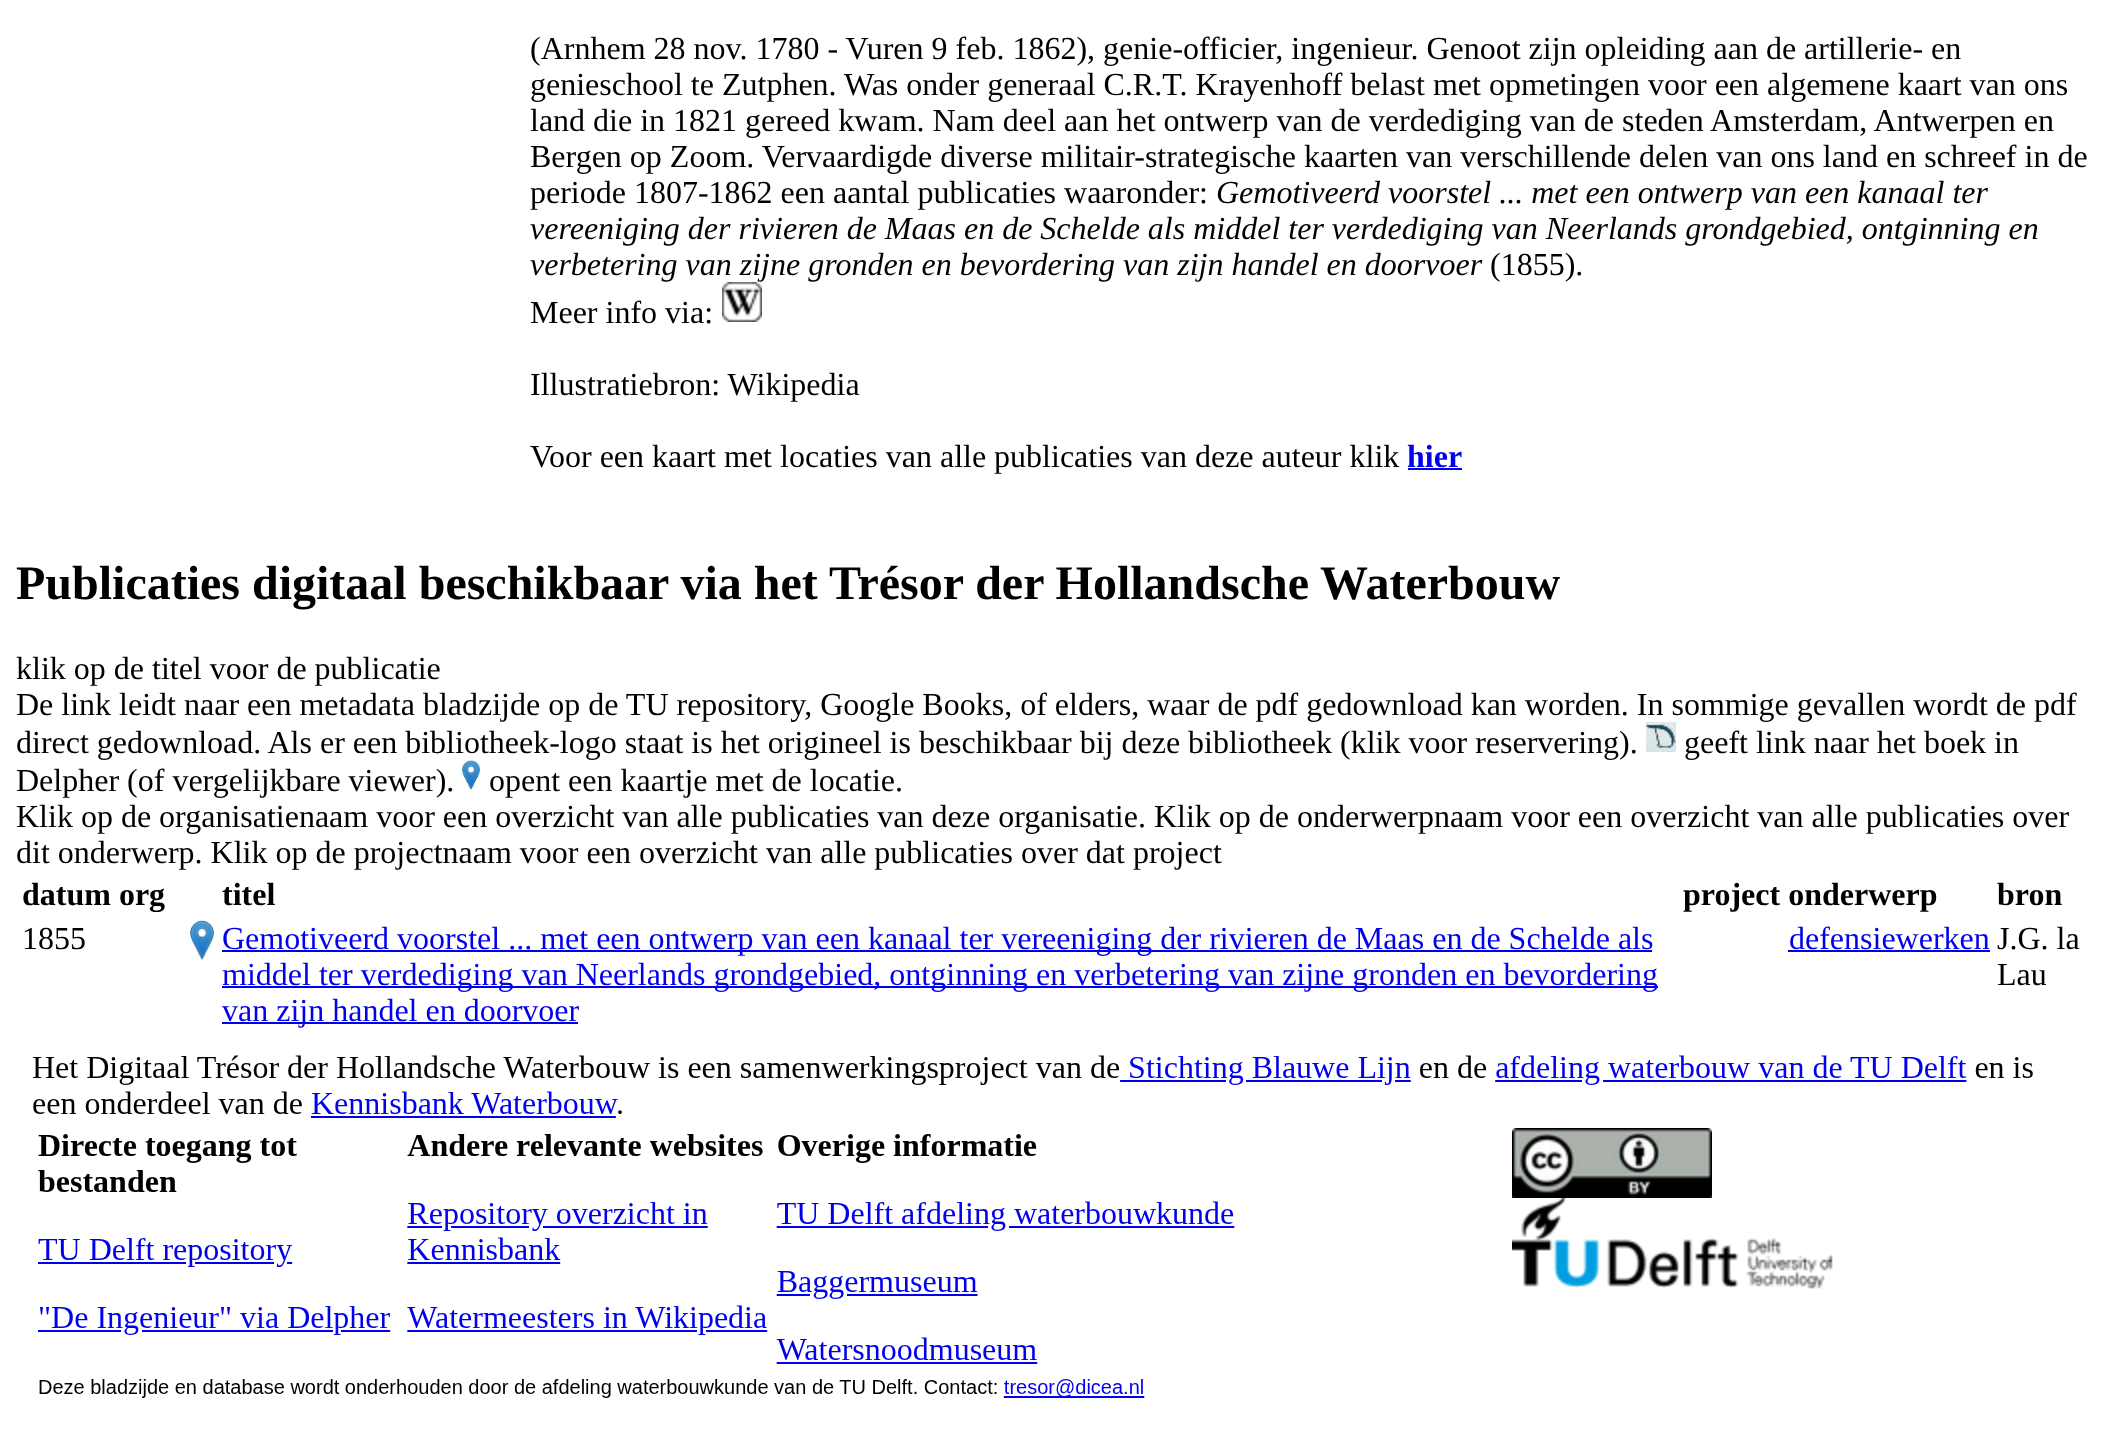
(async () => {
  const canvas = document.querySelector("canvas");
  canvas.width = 2116;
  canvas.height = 1453;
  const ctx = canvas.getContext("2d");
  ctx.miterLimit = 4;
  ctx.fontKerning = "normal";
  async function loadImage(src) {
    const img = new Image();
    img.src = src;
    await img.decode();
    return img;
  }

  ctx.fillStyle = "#ffffff";
  ctx.fillRect(0, 0, 2116, 1453);
  ctx.drawImage(await loadImage("img/1.png"), 722, 282, 40, 40);
  ctx.fillStyle = "#0000ee";
  ctx.fillRect(1408, 468, 54, 2);
  ctx.drawImage(await loadImage("img/2.png"), 1646, 722, 30, 30);
  ctx.drawImage(await loadImage("img/3.png"), 462, 760, 18, 30);
  ctx.drawImage(await loadImage("img/4.png"), 190, 920, 24, 40);
  for (const [x, y, w, h, color] of [
    [222, 950, 1430, 2, "#0000ee"],
    [222, 986, 1436, 2, "#0000ee"],
    [222, 1022, 356, 2, "#0000ee"],
    [1788, 950, 202, 2, "#0000ee"],
  ]) {
    ctx.fillStyle = color;
    ctx.fillRect(x, y, w, h);
  }
  ctx.drawImage(await loadImage("img/5.png"), 32, 1055, 2001, 343);
  ctx.font = "32px Liberation Serif";
  ctx.fillStyle = "#000000";
  for (const [text, x, y] of [
    ["(Arnhem 28 nov. 1780 - Vuren 9 feb. 1862), genie-officier, ingenieur. Genoot zijn opleiding aan de artillerie- en", 530, 59],
    ["genieschool te Zutphen. Was onder generaal C.R.T. Krayenhoff belast met opmetingen voor een algemene kaart van ons", 530, 95],
    ["land die in 1821 gereed kwam. Nam deel aan het ontwerp van de verdediging van de steden Amsterdam, Antwerpen en", 530, 131],
    ["Bergen op Zoom. Vervaardigde diverse militair-strategische kaarten van verschillende delen van ons land en schreef in de", 530, 167],
    ["periode 1807-1862 een aantal publicaties waaronder:", 530, 203],
  ]) {
    ctx.fillText(text, x, y);
  }
  ctx.font = "italic 32px Liberation Serif";
  for (const [text, x, y] of [
    ["Gemotiveerd voorstel ... met een ontwerp van een kanaal ter", 1216, 203],
    ["vereeniging der rivieren de Maas en de Schelde als middel ter verdediging van Neerlands grondgebied, ontginning en", 530, 239],
    ["verbetering van zijne gronden en bevordering van zijn handel en doorvoer", 530, 275],
  ]) {
    ctx.fillText(text, x, y);
  }
  ctx.font = "32px Liberation Serif";
  for (const [text, x, y] of [
    ["(1855).", 1490, 275],
    ["Meer info via:", 530, 323],
    ["Illustratiebron: Wikipedia", 530, 395],
    ["Voor een kaart met locaties van alle publicaties van deze auteur klik", 530, 467],
  ]) {
    ctx.fillText(text, x, y);
  }
  ctx.font = "bold 32px Liberation Serif";
  ctx.fillStyle = "#0000ee";
  ctx.fillText("hier", 1407, 467);
  ctx.font = "bold 48px Liberation Serif";
  ctx.fillStyle = "#000000";
  ctx.fillText("Publicaties digitaal beschikbaar via het Trésor der Hollandsche Waterbouw", 16, 599);
  ctx.font = "32px Liberation Serif";
  for (const [text, x, y] of [
    ["klik op de titel voor de publicatie", 16, 679],
    ["De link leidt naar een metadata bladzijde op de TU repository, Google Books, of elders, waar de pdf gedownload kan worden. In sommige gevallen wordt de pdf", 16, 715],
    ["direct gedownload. Als er een bibliotheek-logo staat is het origineel is beschikbaar bij deze bibliotheek (klik voor reservering).", 16, 753],
    ["geeft link naar het boek in", 1684, 753],
    ["Delpher (of vergelijkbare viewer).", 16, 791],
    ["opent een kaartje met de locatie.", 489, 791],
    ["Klik op de organisatienaam voor een overzicht van alle publicaties van deze organisatie. Klik op de onderwerpnaam voor een overzicht van alle publicaties over", 16, 827],
    ["dit onderwerp. Klik op de projectnaam voor een overzicht van alle publicaties over dat project", 16, 863],
  ]) {
    ctx.fillText(text, x, y);
  }
  ctx.font = "bold 32px Liberation Serif";
  for (const [text, x, y] of [
    ["datum org", 22, 905],
    ["titel", 222, 905],
    ["project onderwerp", 1683, 905],
    ["bron", 1997, 905],
  ]) {
    ctx.fillText(text, x, y);
  }
  ctx.font = "32px Liberation Serif";
  ctx.fillText("1855", 22, 949);
  ctx.fillStyle = "#0000ee";
  for (const [text, x, y] of [
    ["Gemotiveerd voorstel ... met een ontwerp van een kanaal ter vereeniging der rivieren de Maas en de Schelde als", 222, 949],
    ["middel ter verdediging van Neerlands grondgebied, ontginning en verbetering van zijne gronden en bevordering", 222, 985],
    ["van zijn handel en doorvoer", 222, 1021],
    ["defensiewerken", 1789, 949],
  ]) {
    ctx.fillText(text, x, y);
  }
  ctx.fillStyle = "#000000";
  ctx.fillText("J.G. la", 1997, 949);
  ctx.fillText("Lau", 1997, 985);
})();
